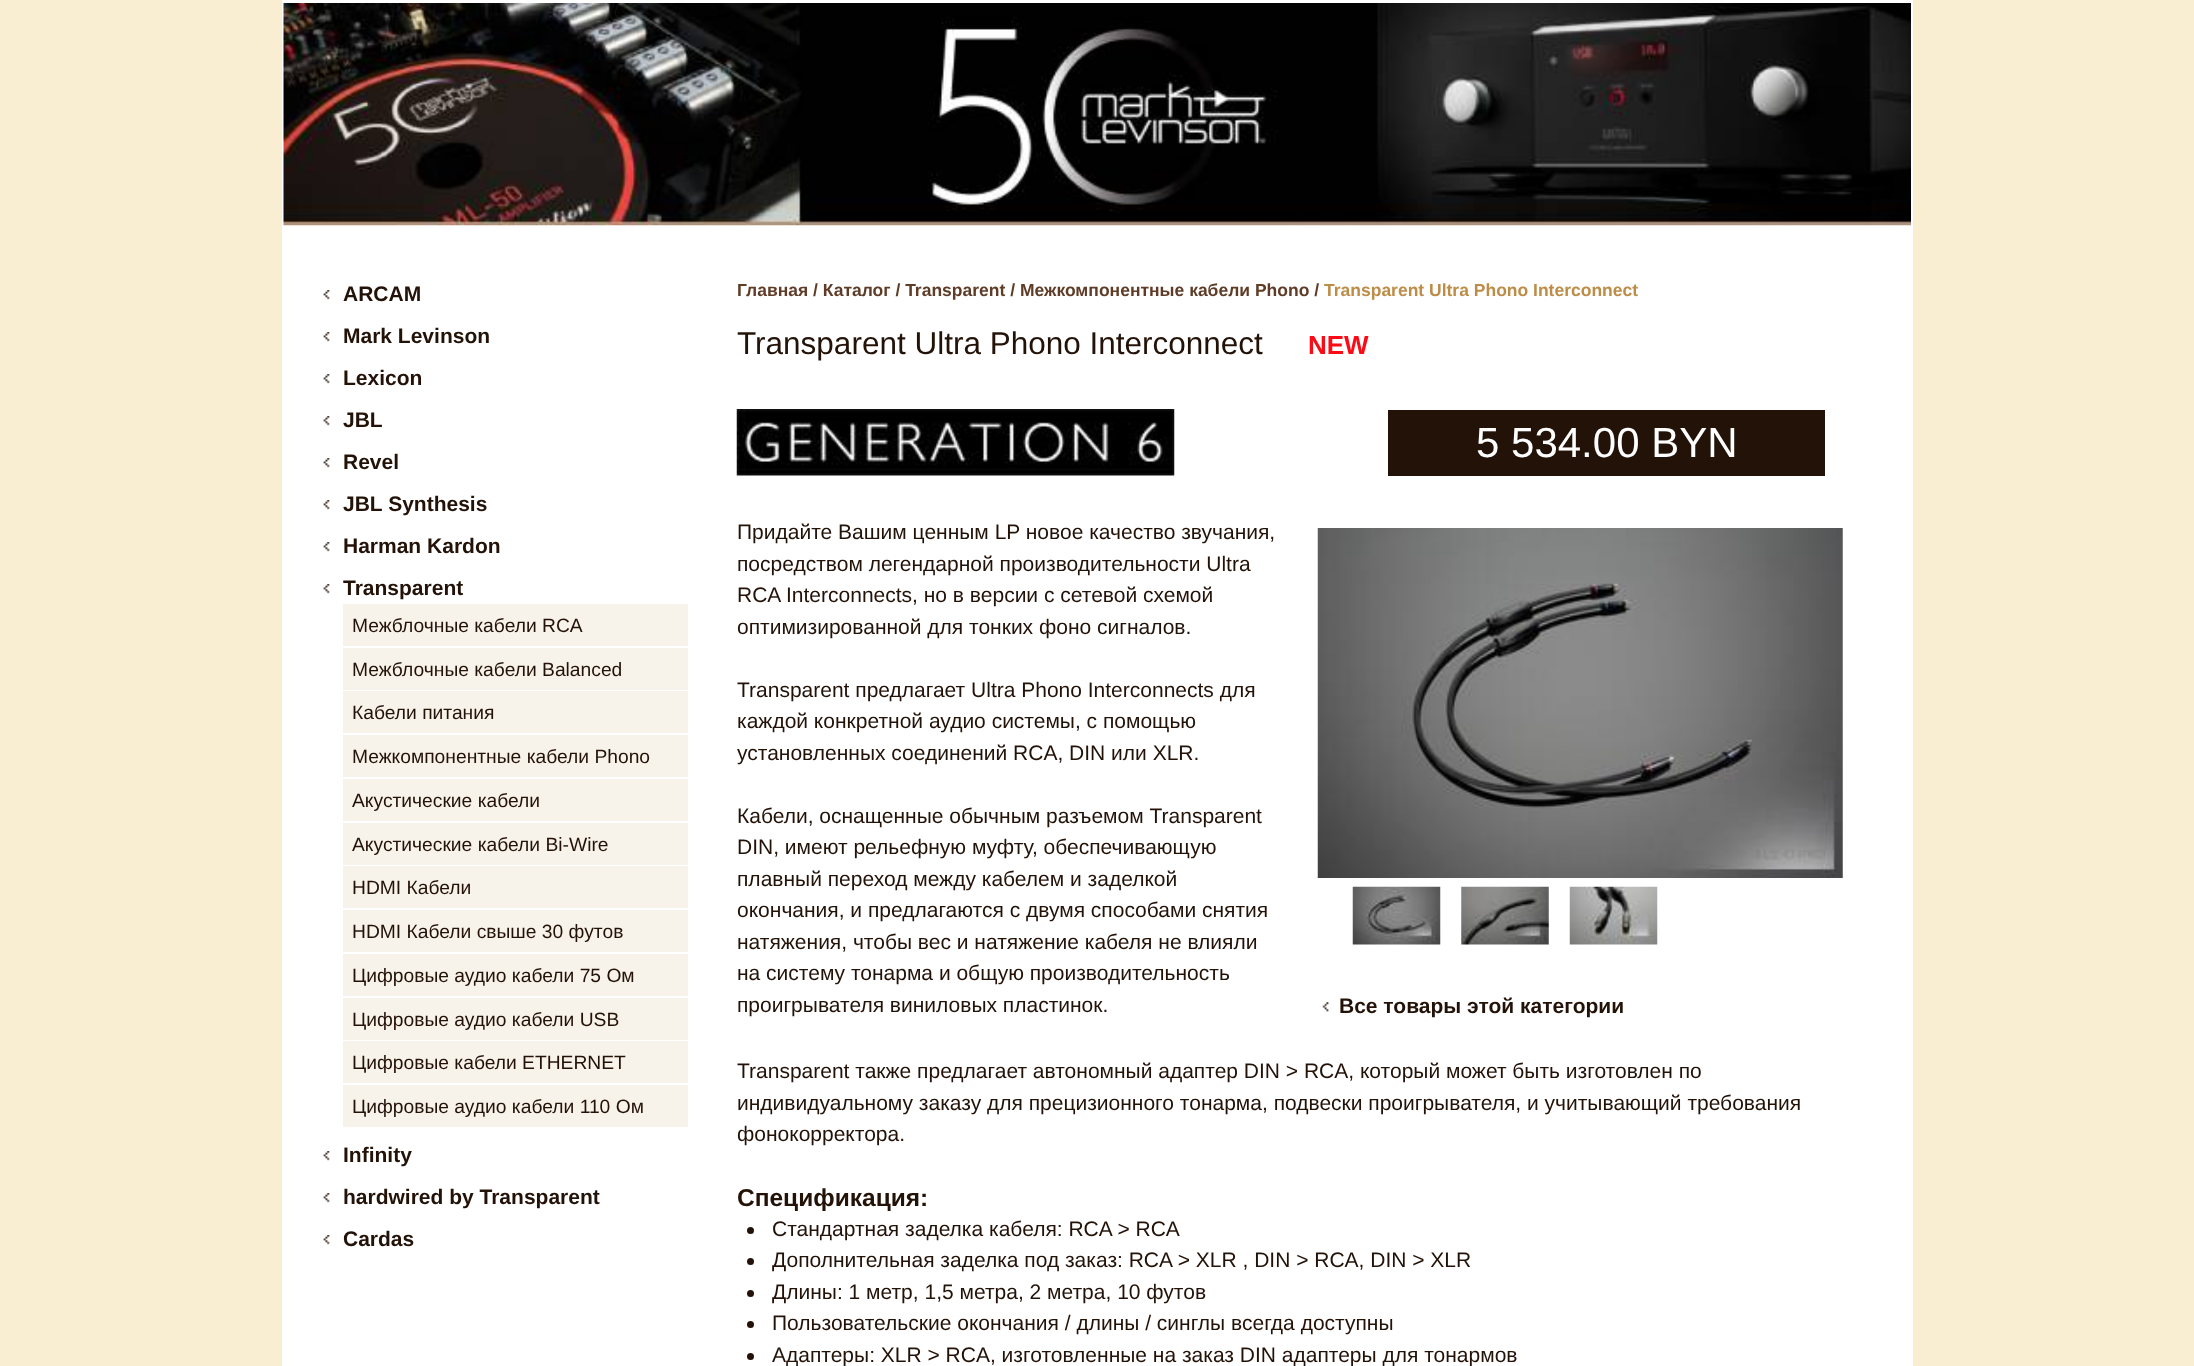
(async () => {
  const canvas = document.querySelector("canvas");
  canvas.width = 2194;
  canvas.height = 1366;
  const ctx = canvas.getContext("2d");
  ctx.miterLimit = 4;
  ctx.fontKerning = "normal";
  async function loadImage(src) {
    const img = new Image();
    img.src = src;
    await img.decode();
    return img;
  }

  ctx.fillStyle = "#faeed2";
  ctx.fillRect(0, 0, 2194, 1366);
  ctx.fillStyle = "#ffffff";
  ctx.fillRect(282, 0, 1631, 1366);
  ctx.drawImage(await loadImage("img/1.png"), 283, 3, 1628, 223);
  ctx.drawImage(await loadImage("img/2.png"), 323, 290, 7, 10);
  ctx.drawImage(await loadImage("img/2.png"), 323, 332, 7, 10);
  ctx.drawImage(await loadImage("img/2.png"), 323, 374, 7, 10);
  ctx.drawImage(await loadImage("img/2.png"), 323, 416, 7, 10);
  ctx.drawImage(await loadImage("img/2.png"), 323, 458, 7, 10);
  ctx.drawImage(await loadImage("img/2.png"), 323, 500, 7, 10);
  ctx.drawImage(await loadImage("img/2.png"), 323, 542, 7, 10);
  ctx.drawImage(await loadImage("img/2.png"), 323, 584, 7, 10);
  for (const [x, y, w, h, color] of [
    [343, 604, 345, 42, "#f8f3ea"],
    [343, 648, 345, 42, "#f8f3ea"],
    [343, 691, 345, 42, "#f8f3ea"],
    [343, 735, 345, 42, "#f8f3ea"],
    [343, 779, 345, 42, "#f8f3ea"],
    [343, 823, 345, 42, "#f8f3ea"],
    [343, 866, 345, 42, "#f8f3ea"],
    [343, 910, 345, 42, "#f8f3ea"],
    [343, 954, 345, 42, "#f8f3ea"],
    [343, 998, 345, 42, "#f8f3ea"],
    [343, 1041, 345, 42, "#f8f3ea"],
    [343, 1085, 345, 42, "#f8f3ea"],
  ]) {
    ctx.fillStyle = color;
    ctx.fillRect(x, y, w, h);
  }
  ctx.drawImage(await loadImage("img/2.png"), 323, 1151, 7, 10);
  ctx.drawImage(await loadImage("img/2.png"), 323, 1193, 7, 10);
  ctx.drawImage(await loadImage("img/2.png"), 323, 1235, 7, 10);
  ctx.fillStyle = "#231208";
  ctx.fillRect(1388, 410, 437, 66);
  ctx.drawImage(await loadImage("img/3.png"), 1317, 528, 526, 350);
  ctx.drawImage(await loadImage("img/4.png"), 1352, 886, 89, 59);
  ctx.drawImage(await loadImage("img/5.png"), 1461, 886, 88, 59);
  ctx.drawImage(await loadImage("img/6.png"), 1569, 886, 89, 59);
  ctx.drawImage(await loadImage("img/7.png"), 1322, 1002, 7, 10);
  ctx.drawImage(await loadImage("img/8.png"), 736, 409, 439, 67);
  ctx.beginPath();
  ctx.arc(750.5, 1230.5, 3.5, 0, Math.PI * 2);
  ctx.fill();
  ctx.beginPath();
  ctx.arc(750.5, 1261.5, 3.5, 0, Math.PI * 2);
  ctx.fill();
  ctx.beginPath();
  ctx.arc(750.5, 1293.5, 3.5, 0, Math.PI * 2);
  ctx.fill();
  ctx.beginPath();
  ctx.arc(750.5, 1324.5, 3.5, 0, Math.PI * 2);
  ctx.fill();
  ctx.beginPath();
  ctx.arc(750.5, 1356.5, 3.5, 0, Math.PI * 2);
  ctx.fill();
  ctx.font = "bold 21px Liberation Sans";
  for (const [text, x, y] of [
    ["ARCAM", 343, 301],
    ["Mark Levinson", 343, 343],
    ["Lexicon", 343, 385],
    ["JBL", 343, 427],
    ["Revel", 343, 469],
    ["JBL Synthesis", 343, 511],
    ["Harman Kardon", 343, 553],
    ["Transparent", 343, 595],
  ]) {
    ctx.fillText(text, x, y);
  }
  ctx.font = "19.25px Liberation Sans";
  for (const [text, x, y] of [
    ["Межблочные кабели RCA", 352, 632],
    ["Межблочные кабели Balanced", 352, 676],
    ["Кабели питания", 352, 719],
    ["Межкомпонентные кабели Phono", 352, 763],
    ["Акустические кабели", 352, 807],
    ["Акустические кабели Bi-Wire", 352, 851],
    ["HDMI Кабели", 352, 894],
    ["HDMI Кабели свыше 30 футов", 352, 938],
    ["Цифровые аудио кабели 75 Ом", 352, 982],
    ["Цифровые аудио кабели USB", 352, 1026],
    ["Цифровые кабели ETHERNET", 352, 1069],
    ["Цифровые аудио кабели 110 Ом", 352, 1113],
  ]) {
    ctx.fillText(text, x, y);
  }
  ctx.font = "bold 21px Liberation Sans";
  for (const [text, x, y] of [
    ["Infinity", 343, 1162],
    ["hardwired by Transparent", 343, 1204],
    ["Cardas", 343, 1246],
  ]) {
    ctx.fillText(text, x, y);
  }
  ctx.font = "bold 17.5px Liberation Sans";
  ctx.fillStyle = "#5f3c27";
  ctx.fillText("Главная / Каталог / Transparent / Межкомпонентные кабели Phono /", 737, 296);
  ctx.fillStyle = "#bd8d48";
  ctx.fillText("Transparent Ultra Phono Interconnect", 1324, 296);
  ctx.font = "31.5px Liberation Sans";
  ctx.fillStyle = "#231208";
  ctx.fillText("Transparent Ultra Phono Interconnect", 737, 354);
  ctx.font = "bold 26px Liberation Sans";
  ctx.fillStyle = "#fa0b16";
  ctx.fillText("NEW", 1308, 354);
  ctx.font = "42px Liberation Sans";
  ctx.fillStyle = "#ffffff";
  ctx.fillText("5 534.00 BYN", 1476, 457);
  ctx.font = "bold 21px Liberation Sans";
  ctx.fillStyle = "#231208";
  ctx.fillText("Все товары этой категории", 1339, 1013);
  ctx.font = "21px Liberation Sans";
  for (const [text, x, y] of [
    ["Придайте Вашим ценным LP новое качество звучания,", 737, 539],
    ["посредством легендарной производительности Ultra", 737, 571],
    ["RCA Interconnects, но в версии с сетевой схемой", 737, 602],
    ["оптимизированной для тонких фоно сигналов.", 737, 634],
    ["Transparent предлагает Ultra Phono Interconnects для", 737, 697],
    ["каждой конкретной аудио системы, с помощью", 737, 728],
    ["установленных соединений RCA, DIN или XLR.", 737, 760],
    ["Кабели, оснащенные обычным разъемом Transparent", 737, 823],
    ["DIN, имеют рельефную муфту, обеспечивающую", 737, 854],
    ["плавный переход между кабелем и заделкой", 737, 886],
    ["окончания, и предлагаются с двумя способами снятия", 737, 917],
    ["натяжения, чтобы вес и натяжение кабеля не влияли", 737, 949],
    ["на систему тонарма и общую производительность", 737, 980],
    ["проигрывателя виниловых пластинок.", 737, 1012],
    ["Transparent также предлагает автономный адаптер DIN > RCA, который может быть изготовлен по", 737, 1078],
    ["индивидуальному заказу для прецизионного тонарма, подвески проигрывателя, и учитывающий требования", 737, 1110],
    ["фонокорректора.", 737, 1141],
  ]) {
    ctx.fillText(text, x, y);
  }
  ctx.font = "bold 24.5px Liberation Sans";
  ctx.fillText("Спецификация:", 737, 1206);
  ctx.font = "21px Liberation Sans";
  for (const [text, x, y] of [
    ["Стандартная заделка кабеля: RCA > RCA", 772, 1236],
    ["Дополнительная заделка под заказ: RCA > XLR , DIN > RCA, DIN > XLR", 772, 1267],
    ["Длины: 1 метр, 1,5 метра, 2 метра, 10 футов", 772, 1299],
    ["Пользовательские окончания / длины / синглы всегда доступны", 772, 1330],
    ["Адаптеры: XLR > RCA, изготовленные на заказ DIN адаптеры для тонармов", 772, 1362],
  ]) {
    ctx.fillText(text, x, y);
  }
})();
